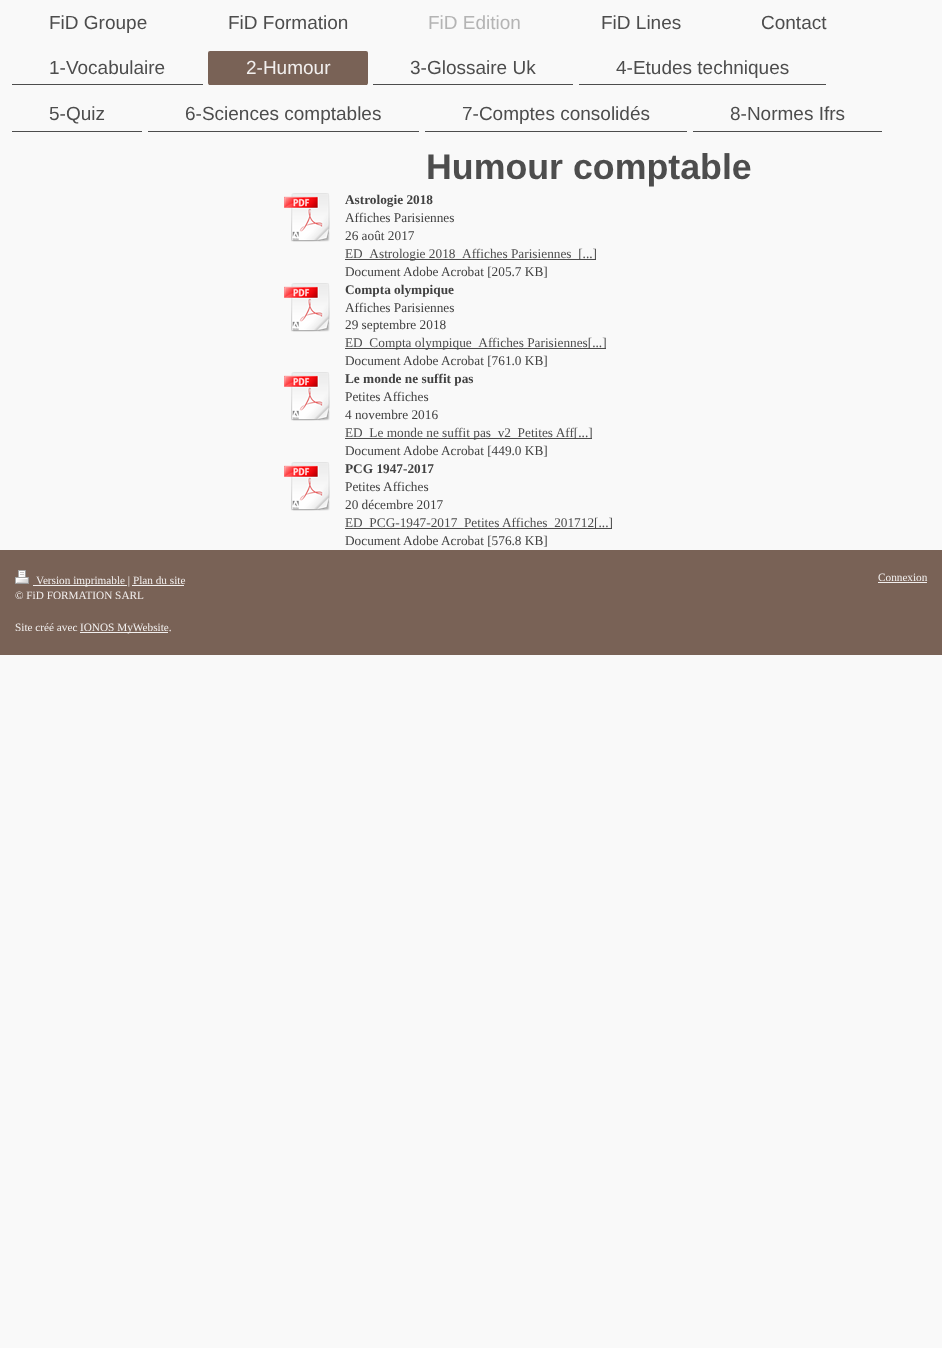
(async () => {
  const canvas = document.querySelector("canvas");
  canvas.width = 942;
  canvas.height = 1348;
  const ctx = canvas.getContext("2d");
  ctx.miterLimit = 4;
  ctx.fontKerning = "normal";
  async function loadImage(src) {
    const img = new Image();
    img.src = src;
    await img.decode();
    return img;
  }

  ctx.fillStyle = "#f9f9f9";
  ctx.fillRect(0, 0, 942, 1348);
  ctx.fillStyle = "#4d4d4d";
  ctx.fillRect(12, 84, 191, 1);
  ctx.fillStyle = "#796256";
  ctx.beginPath();
  ctx.roundRect(208, 51, 160, 34, 2);
  ctx.fill();
  for (const [x, y, w, h, color] of [
    [209, 84, 158, 1, "#796256"],
    [373, 84, 200, 1, "#4d4d4d"],
    [579, 84, 247, 1, "#4d4d4d"],
    [12, 131, 130, 1, "#4d4d4d"],
    [148, 131, 271, 1, "#4d4d4d"],
    [425, 131, 262, 1, "#4d4d4d"],
    [693, 131, 189, 1, "#4d4d4d"],
  ]) {
    ctx.fillStyle = color;
    ctx.fillRect(x, y, w, h);
  }
  ctx.drawImage(await loadImage("img/1.png"), 284, 193, 46, 49);
  ctx.fillRect(345, 259, 251, 1);
  ctx.drawImage(await loadImage("img/1.png"), 284, 283, 46, 49);
  ctx.fillRect(345, 348, 261, 1);
  ctx.drawImage(await loadImage("img/1.png"), 284, 372, 46, 49);
  ctx.fillRect(345, 438, 247, 1);
  ctx.drawImage(await loadImage("img/1.png"), 284, 462, 46, 49);
  ctx.fillRect(345, 528, 267, 1);
  ctx.fillStyle = "#796256";
  ctx.fillRect(0, 550, 942, 105);
  ctx.drawImage(await loadImage("img/2.png"), 15, 570, 14, 14);
  for (const [x, y, w, h, color] of [
    [33, 585, 94, 1, "#f2efee"],
    [132, 585, 52, 1, "#f2efee"],
    [80, 632, 88, 1, "#f2efee"],
    [878, 582, 49, 1, "#f2efee"],
  ]) {
    ctx.fillStyle = color;
    ctx.fillRect(x, y, w, h);
  }
  ctx.font = "19px Liberation Sans";
  ctx.fillStyle = "#4d4d4d";
  ctx.fillText("FiD Groupe", 49, 29);
  ctx.fillText("FiD Formation", 228, 29);
  ctx.fillStyle = "#b4b4b4";
  ctx.fillText("FiD Edition", 428, 29);
  ctx.fillStyle = "#4d4d4d";
  for (const [text, x, y] of [
    ["FiD Lines", 601, 29],
    ["Contact", 761, 29],
    ["1-Vocabulaire", 49, 74],
  ]) {
    ctx.fillText(text, x, y);
  }
  ctx.fillStyle = "#f2efee";
  ctx.fillText("2-Humour", 246, 74);
  ctx.fillStyle = "#4d4d4d";
  for (const [text, x, y] of [
    ["3-Glossaire Uk", 410, 74],
    ["4-Etudes techniques", 616, 74],
    ["5-Quiz", 49, 120],
    ["6-Sciences comptables", 185, 120],
    ["7-Comptes consolidés", 462, 120],
    ["8-Normes Ifrs", 730, 120],
  ]) {
    ctx.fillText(text, x, y);
  }
  ctx.font = "bold 35.75px Liberation Sans";
  ctx.fillText("Humour comptable", 426, 179);
  ctx.font = "bold 13.3px Liberation Serif";
  ctx.fillStyle = "#414141";
  ctx.fillText("Astrologie 2018", 345, 204);
  ctx.font = "13.3px Liberation Serif";
  ctx.fillText("Affiches Parisiennes", 345, 222);
  ctx.fillText("26 août 2017", 345, 240);
  ctx.fillStyle = "#4d4d4d";
  ctx.fillText("ED_Astrologie 2018_Affiches Parisiennes_[...]", 345, 258);
  ctx.fillStyle = "#414141";
  ctx.fillText("Document Adobe Acrobat [205.7 KB]", 345, 276);
  ctx.font = "bold 13.3px Liberation Serif";
  ctx.fillText("Compta olympique", 345, 294);
  ctx.font = "13.3px Liberation Serif";
  ctx.fillText("Affiches Parisiennes", 345, 312);
  ctx.fillText("29 septembre 2018", 345, 329);
  ctx.fillStyle = "#4d4d4d";
  ctx.fillText("ED_Compta olympique_Affiches Parisiennes[...]", 345, 347);
  ctx.fillStyle = "#414141";
  ctx.fillText("Document Adobe Acrobat [761.0 KB]", 345, 365);
  ctx.font = "bold 13.3px Liberation Serif";
  ctx.fillText("Le monde ne suffit pas", 345, 383);
  ctx.font = "13.3px Liberation Serif";
  ctx.fillText("Petites Affiches", 345, 401);
  ctx.fillText("4 novembre 2016", 345, 419);
  ctx.fillStyle = "#4d4d4d";
  ctx.fillText("ED_Le monde ne suffit pas_v2_Petites Aff[...]", 345, 437);
  ctx.fillStyle = "#414141";
  ctx.fillText("Document Adobe Acrobat [449.0 KB]", 345, 455);
  ctx.font = "bold 13.3px Liberation Serif";
  ctx.fillText("PCG 1947-2017", 345, 473);
  ctx.font = "13.3px Liberation Serif";
  ctx.fillText("Petites Affiches", 345, 491);
  ctx.fillText("20 décembre 2017", 345, 509);
  ctx.fillStyle = "#4d4d4d";
  ctx.fillText("ED_PCG-1947-2017_Petites Affiches_201712[...]", 345, 527);
  ctx.fillStyle = "#414141";
  ctx.fillText("Document Adobe Acrobat [576.8 KB]", 345, 545);
  ctx.font = "11.25px Liberation Serif";
  ctx.fillStyle = "#f2efee";
  for (const [text, x, y] of [
    ["Version imprimable | Plan du site", 36, 584],
    ["© FiD FORMATION SARL", 15, 599],
    ["Site créé avec", 15, 631],
    ["IONOS MyWebsite.", 80, 631],
    ["Connexion", 878, 581],
  ]) {
    ctx.fillText(text, x, y);
  }
})();
